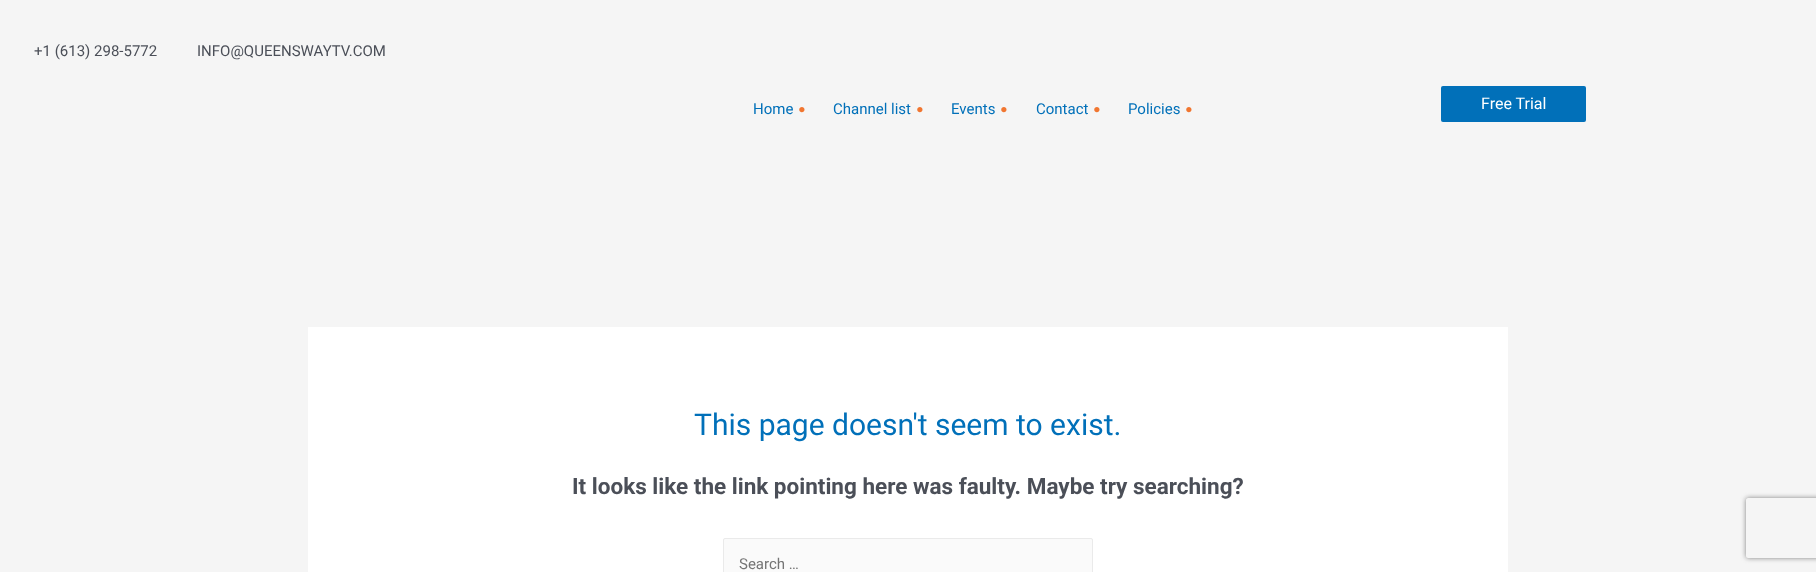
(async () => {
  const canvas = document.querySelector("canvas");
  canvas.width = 1816;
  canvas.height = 572;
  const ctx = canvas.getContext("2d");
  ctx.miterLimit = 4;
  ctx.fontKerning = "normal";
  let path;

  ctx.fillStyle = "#f5f5f5";
  ctx.fillRect(0, 0, 1816, 572);
  ctx.fillStyle = "#0170b9";
  ctx.beginPath();
  ctx.roundRect(1441, 86, 145, 36, 2);
  ctx.fill();
  ctx.fillStyle = "#ffffff";
  ctx.fillRect(308, 327, 1200, 245);
  ctx.fillStyle = "#fafafa";
  ctx.beginPath();
  ctx.roundRect(723.5, 538.5, 369, 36, 1.5);
  ctx.fill();
  ctx.strokeStyle = "#eaeaea";
  ctx.stroke();
  ctx.save();
  path = new Path2D("M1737 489H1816V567H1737ZM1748 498H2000C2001 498 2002 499 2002 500V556C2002 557 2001 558 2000 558H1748C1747 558 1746 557 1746 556V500C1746 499 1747 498 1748 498Z");
  ctx.clip(path, "evenodd");
  ctx.fillStyle = "#808080";
  ctx.filter = "blur(2.5px)";
  ctx.beginPath();
  ctx.roundRect(1746, 498, 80, 60, 2);
  ctx.fill();
  ctx.filter = "none";
  ctx.restore();
  ctx.font = "15px Roboto";
  ctx.fillStyle = "#4b4f58";
  ctx.fillText("+1 (613) 298-5772", 34, 56);
  ctx.fillText("INFO@QUEENSWAYTV.COM", 197, 56);
  ctx.fillStyle = "#0170b9";
  ctx.fillText("Home", 753, 114);
  ctx.font = "22px Liberation Serif";
  ctx.fillStyle = "#f17630";
  ctx.fillText("•", 798, 117);
  ctx.font = "15px Roboto";
  ctx.fillStyle = "#0170b9";
  ctx.fillText("Channel list", 833, 114);
  ctx.font = "22px Liberation Serif";
  ctx.fillStyle = "#f17630";
  ctx.fillText("•", 916, 117);
  ctx.font = "15px Roboto";
  ctx.fillStyle = "#0170b9";
  ctx.fillText("Events", 951, 114);
  ctx.font = "22px Liberation Serif";
  ctx.fillStyle = "#f17630";
  ctx.fillText("•", 1000, 117);
  ctx.font = "15px Roboto";
  ctx.fillStyle = "#0170b9";
  ctx.fillText("Contact", 1036, 114);
  ctx.font = "22px Liberation Serif";
  ctx.fillStyle = "#f17630";
  ctx.fillText("•", 1093, 117);
  ctx.font = "15px Roboto";
  ctx.fillStyle = "#0170b9";
  ctx.fillText("Policies", 1128, 114);
  ctx.font = "22px Liberation Serif";
  ctx.fillStyle = "#f17630";
  ctx.fillText("•", 1185, 117);
  ctx.font = "16px Roboto";
  ctx.fillStyle = "#ffffff";
  ctx.fillText("Free Trial", 1481, 109);
  ctx.font = "30px Roboto";
  ctx.fillStyle = "#0170b9";
  ctx.fillText("This page doesn't seem to exist.", 694, 435);
  ctx.font = "bold 22.5px Roboto";
  ctx.fillStyle = "#4b4f58";
  ctx.fillText("It looks like the link pointing here was faulty. Maybe try searching?", 572, 494);
  ctx.font = "15px Roboto";
  ctx.fillStyle = "#757575";
  ctx.fillText("Search …", 739, 569);
})();
